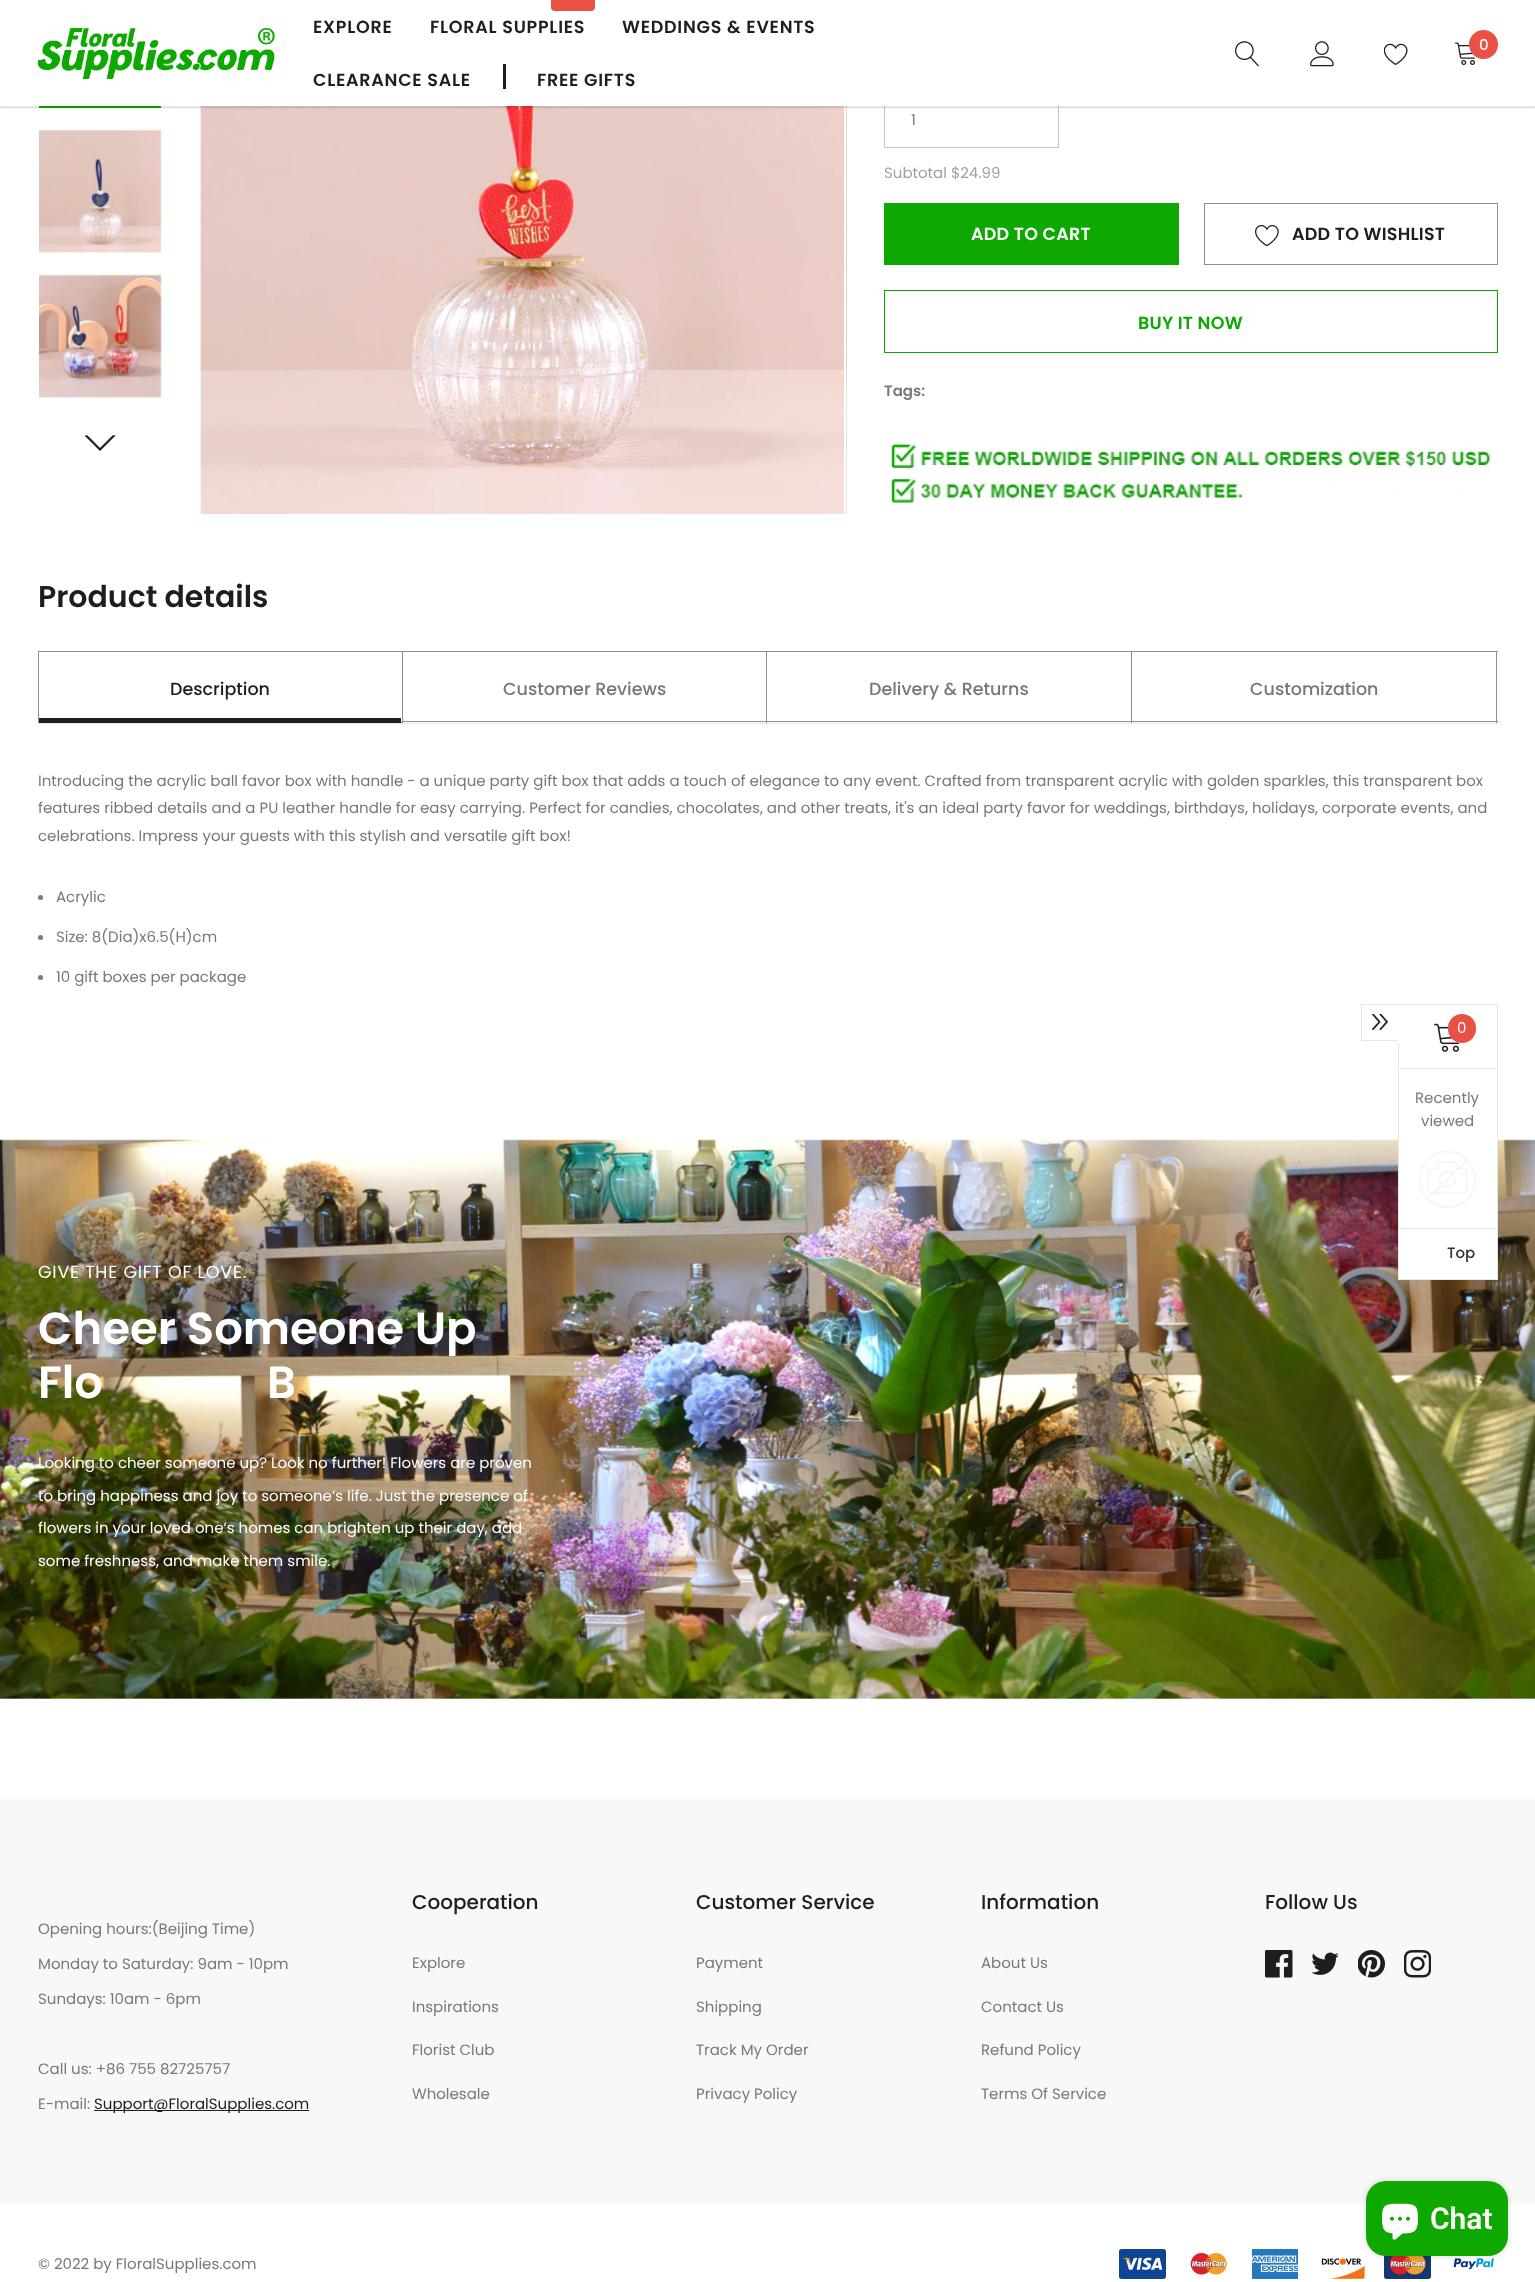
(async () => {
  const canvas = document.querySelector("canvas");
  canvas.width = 1535;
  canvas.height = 2282;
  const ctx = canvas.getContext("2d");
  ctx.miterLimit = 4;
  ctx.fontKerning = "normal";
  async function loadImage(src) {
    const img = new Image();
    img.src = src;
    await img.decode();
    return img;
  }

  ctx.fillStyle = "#ffffff";
  ctx.fillRect(0, 0, 1535, 2282);
  ctx.strokeStyle = "#0ea800";
  ctx.lineWidth = 3;
  ctx.strokeRect(40.5, -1.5, 119, 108);
  ctx.drawImage(await loadImage("img/9.png"), 200, 106, 647, 408);
  ctx.fillRect(844, 106, 2, 408);
  ctx.strokeStyle = "#c5c5cf";
  ctx.lineWidth = 1;
  ctx.strokeRect(884.5, 93.5, 174, 54);
  ctx.fillStyle = "rgba(0, 0, 0, 0.1)";
  ctx.filter = "blur(1px)";
  ctx.beginPath();
  ctx.rect(0, 1, 1535, 107);
  ctx.fill();
  ctx.filter = "none";
  ctx.strokeStyle = "rgba(0, 0, 0, 0.06)";
  ctx.strokeRect(-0.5, -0.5, 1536, 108);
  ctx.fillStyle = "#ffffff";
  ctx.fillRect(0, 0, 1535, 106);
  ctx.drawImage(await loadImage("img/1.png"), 37, 27, 238, 52);
  ctx.fillStyle = "#e95144";
  ctx.beginPath();
  ctx.roundRect(551, -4, 44, 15, 4);
  ctx.fill();
  ctx.fillStyle = "#1e1e1e";
  ctx.fillRect(503, 64, 3, 25);
  ctx.drawImage(await loadImage("img/2.png"), 1235, 41, 24, 26);
  ctx.drawImage(await loadImage("img/3.png"), 1310, 41, 24, 26);
  ctx.drawImage(await loadImage("img/4.png"), 1384, 43, 24, 22);
  ctx.drawImage(await loadImage("img/5.png"), 1455, 42, 20, 23);
  ctx.fillStyle = "#e95144";
  ctx.beginPath();
  ctx.arc(1483.5, 44.5, 14.5, 0, Math.PI * 2);
  ctx.fill();
  ctx.drawImage(await loadImage("img/6.png"), 39, 129, 123, 124);
  ctx.drawImage(await loadImage("img/7.png"), 39, 274, 123, 124);
  ctx.drawImage(await loadImage("img/8.png"), 85, 435, 31, 16);
  ctx.fillStyle = "#0ea800";
  ctx.fillRect(884, 203, 295, 62);
  ctx.strokeStyle = "#8e8e8e";
  ctx.strokeRect(1204.5, 203.5, 293, 61);
  ctx.drawImage(await loadImage("img/10.png"), 1255, 225, 24, 22);
  ctx.strokeStyle = "#0ea800";
  ctx.strokeRect(884.5, 290.5, 613, 62);
  ctx.drawImage(await loadImage("img/11.png"), 890, 440, 601, 66);
  ctx.fillStyle = "#e6e6e6";
  ctx.fillRect(38, 723, 1460, 1);
  ctx.strokeStyle = "#8e8e8e";
  ctx.strokeRect(38.5, 651.5, 364, 71);
  for (const [x, y, w, h, color] of [
    [39, 718, 362, 5, "#1e1e1e"],
    [403, 651, 1095, 1, "#8e8e8e"],
    [766, 651, 1, 72, "#8e8e8e"],
    [403, 721, 365, 1, "#8e8e8e"],
    [1131, 651, 1, 72, "#8e8e8e"],
    [768, 721, 365, 1, "#8e8e8e"],
    [1496, 651, 1, 72, "#8e8e8e"],
    [1133, 721, 365, 1, "#8e8e8e"],
  ]) {
    ctx.fillStyle = color;
    ctx.fillRect(x, y, w, h);
  }
  ctx.fillStyle = "#787878";
  ctx.beginPath();
  ctx.arc(40.5, 897.5, 2.5, 0, Math.PI * 2);
  ctx.fill();
  ctx.beginPath();
  ctx.arc(40.5, 937.5, 2.5, 0, Math.PI * 2);
  ctx.fill();
  ctx.beginPath();
  ctx.arc(40.5, 977.5, 2.5, 0, Math.PI * 2);
  ctx.fill();
  ctx.drawImage(await loadImage("img/12.png"), 0, 1139, 1535, 560);
  ctx.fillStyle = "#ffffff";
  ctx.fillRect(1399, 1139, 98, 140);
  ctx.strokeStyle = "#e7e7e7";
  ctx.strokeRect(1398.5, 1004.5, 99, 275);
  ctx.strokeRect(1361.5, 1004.5, 37, 36);
  ctx.drawImage(await loadImage("img/13.png"), 1372, 1014, 16, 17);
  ctx.fillRect(1398, 1005, 1, 38);
  ctx.drawImage(await loadImage("img/14.png"), 1434, 1023, 25, 29);
  ctx.fillStyle = "#e95144";
  ctx.beginPath();
  ctx.roundRect(1448, 1014, 28, 29, 14);
  ctx.fill();
  ctx.fillStyle = "#e7e7e7";
  ctx.fillRect(1399, 1068, 97, 1);
  ctx.fillRect(1399, 1228, 97, 1);
  ctx.drawImage(await loadImage("img/15.png"), 1419, 1151, 57, 57);
  ctx.fillStyle = "#f7f9f9";
  ctx.fillRect(0, 1799, 1535, 404);
  ctx.drawImage(await loadImage("img/16.png"), 1265, 1950, 28, 28);
  ctx.drawImage(await loadImage("img/17.png"), 1311, 1952, 28, 23);
  ctx.drawImage(await loadImage("img/18.png"), 1358, 1950, 27, 28);
  ctx.drawImage(await loadImage("img/19.png"), 1404, 1950, 27, 28);
  ctx.fillStyle = "#1e1e1e";
  ctx.fillRect(94, 2110, 215, 1);
  ctx.drawImage(await loadImage("img/20.png"), 1119, 2249, 47, 30);
  ctx.drawImage(await loadImage("img/21.png"), 1190, 2253, 37, 22);
  ctx.drawImage(await loadImage("img/22.png"), 1252, 2249, 46, 30);
  ctx.drawImage(await loadImage("img/23.png"), 1321, 2258, 44, 21);
  ctx.drawImage(await loadImage("img/24.png"), 1384, 2255, 47, 24);
  ctx.drawImage(await loadImage("img/25.png"), 1453, 2258, 41, 12);
  ctx.fillStyle = "rgba(0, 0, 0, 0.15)";
  ctx.filter = "blur(3px)";
  ctx.beginPath();
  ctx.roundRect(1366, 2181, 142, 75, 20);
  ctx.fill();
  ctx.filter = "none";
  ctx.fillStyle = "#0ea800";
  ctx.beginPath();
  ctx.roundRect(1366, 2181, 142, 75, 20);
  ctx.fill();
  ctx.drawImage(await loadImage("img/26.png"), 1382, 2203, 36, 37);
  ctx.letterSpacing = "0.75px";
  ctx.font = "600 17.5px Poppins";
  ctx.fillStyle = "#1e1e1e";
  for (const [text, x, y] of [
    ["EXPLORE", 313, 33],
    ["FLORAL SUPPLIES", 430, 33],
    ["WEDDINGS & EVENTS", 622, 33],
    ["CLEARANCE SALE", 313, 86],
    ["FREE GIFTS", 537, 86],
  ]) {
    ctx.fillText(text, x, y);
  }
  ctx.letterSpacing = "0px";
  ctx.font = "500 15px Poppins";
  ctx.fillStyle = "#ffffff";
  ctx.fillText("0", 1479, 50);
  ctx.font = "15px Poppins";
  ctx.fillStyle = "#787878";
  ctx.fillText("1", 911, 125);
  ctx.fillStyle = "#a0a0a0";
  ctx.fillText("Subtotal $24.99", 884, 178);
  ctx.letterSpacing = "0.25px";
  ctx.font = "600 17.5px Poppins";
  ctx.fillStyle = "#ffffff";
  ctx.fillText("ADD TO CART", 971, 240);
  ctx.fillStyle = "#1e1e1e";
  ctx.fillText("ADD TO WISHLIST", 1292, 240);
  ctx.fillStyle = "#0ea800";
  ctx.fillText("BUY IT NOW", 1138, 329);
  ctx.letterSpacing = "0px";
  ctx.font = "600 15px Poppins";
  ctx.fillStyle = "#787878";
  ctx.fillText("Tags:", 884, 396);
  ctx.font = "600 30px Poppins";
  ctx.fillStyle = "#1e1e1e";
  ctx.fillText("Product details", 38, 607);
  ctx.font = "500 17.5px Poppins";
  ctx.fillText("Description", 170, 695);
  ctx.fillStyle = "#787878";
  for (const [text, x, y] of [
    ["Customer Reviews", 503, 695],
    ["Delivery & Returns", 869, 695],
    ["Customization", 1250, 695],
  ]) {
    ctx.fillText(text, x, y);
  }
  ctx.font = "15px Poppins";
  for (const [text, x, y] of [
    ["Introducing the acrylic ball favor box with handle - a unique party gift box that adds a touch of elegance to any event. Crafted from transparent acrylic with golden sparkles, this transparent box", 38, 786],
    ["features ribbed details and a PU leather handle for easy carrying. Perfect for candies, chocolates, and other treats, it's an ideal party favor for weddings, birthdays, holidays, corporate events, and", 38, 813],
    ["celebrations. Impress your guests with this stylish and versatile gift box!", 38, 841],
    ["Acrylic", 56, 902],
    ["Size: 8(Dia)x6.5(H)cm", 56, 942],
    ["10 gift boxes per package", 56, 982],
  ]) {
    ctx.fillText(text, x, y);
  }
  ctx.letterSpacing = "0.75px";
  ctx.font = "17.5px Poppins";
  ctx.fillStyle = "#ffffff";
  ctx.fillText("GIVE THE GIFT OF LOVE.", 38, 1278);
  ctx.letterSpacing = "0px";
  ctx.font = "600 45px Poppins";
  for (const [text, x, y] of [
    ["Cheer Someone Up", 38, 1344],
    ["Flo", 38, 1398],
    ["B", 267, 1398],
  ]) {
    ctx.fillText(text, x, y);
  }
  ctx.font = "15px Poppins";
  for (const [text, x, y] of [
    ["Looking to cheer someone up? Look no further! Flowers are proven", 38, 1468],
    ["to bring happiness and joy to someone’s life. Just the presence of", 38, 1501],
    ["flowers in your loved one’s homes can brighten up their day, add", 38, 1533],
    ["some freshness, and make them smile.", 38, 1566],
    ["0", 1457, 1033],
  ]) {
    ctx.fillText(text, x, y);
  }
  ctx.fillStyle = "#787878";
  ctx.fillText("Recently", 1415, 1103);
  ctx.fillText("viewed", 1421, 1126);
  ctx.font = "500 15px Poppins";
  ctx.fillStyle = "#323232";
  ctx.fillText("Top", 1447, 1258);
  ctx.font = "500 20px Poppins";
  ctx.fillStyle = "#1e1e1e";
  ctx.fillText("Cooperation", 412, 1909);
  ctx.font = "15px Poppins";
  ctx.fillStyle = "#787878";
  for (const [text, x, y] of [
    ["Explore", 412, 1968],
    ["Inspirations", 412, 2012],
    ["Florist Club", 412, 2055],
    ["Wholesale", 412, 2099],
  ]) {
    ctx.fillText(text, x, y);
  }
  ctx.font = "500 20px Poppins";
  ctx.fillStyle = "#1e1e1e";
  ctx.fillText("Customer Service", 696, 1909);
  ctx.font = "15px Poppins";
  ctx.fillStyle = "#787878";
  for (const [text, x, y] of [
    ["Payment", 696, 1968],
    ["Shipping", 696, 2012],
    ["Track My Order", 696, 2055],
    ["Privacy Policy", 696, 2099],
  ]) {
    ctx.fillText(text, x, y);
  }
  ctx.font = "500 20px Poppins";
  ctx.fillStyle = "#1e1e1e";
  ctx.fillText("Information", 981, 1909);
  ctx.font = "15px Poppins";
  ctx.fillStyle = "#787878";
  for (const [text, x, y] of [
    ["About Us", 981, 1968],
    ["Contact Us", 981, 2012],
    ["Refund Policy", 981, 2055],
    ["Terms Of Service", 981, 2099],
  ]) {
    ctx.fillText(text, x, y);
  }
  ctx.font = "500 20px Poppins";
  ctx.fillStyle = "#1e1e1e";
  ctx.fillText("Follow Us", 1265, 1909);
  ctx.font = "15px Poppins";
  ctx.fillStyle = "#787878";
  for (const [text, x, y] of [
    ["Opening hours:(Beijing Time)", 38, 1934],
    ["Monday to Saturday: 9am - 10pm", 38, 1969],
    ["Sundays: 10am - 6pm", 38, 2004],
    ["Call us: +86 755 82725757", 38, 2074],
    ["E-mail:", 38, 2109],
  ]) {
    ctx.fillText(text, x, y);
  }
  ctx.fillStyle = "#1e1e1e";
  ctx.fillText("Support@FloralSupplies.com", 94, 2109);
  ctx.fillStyle = "#787878";
  ctx.fillText("© 2022 by FloralSupplies.com", 38, 2269);
  ctx.font = "600 30px Roboto";
  ctx.fillStyle = "#ffffff";
  ctx.fillText("Chat", 1430, 2229);
})();
